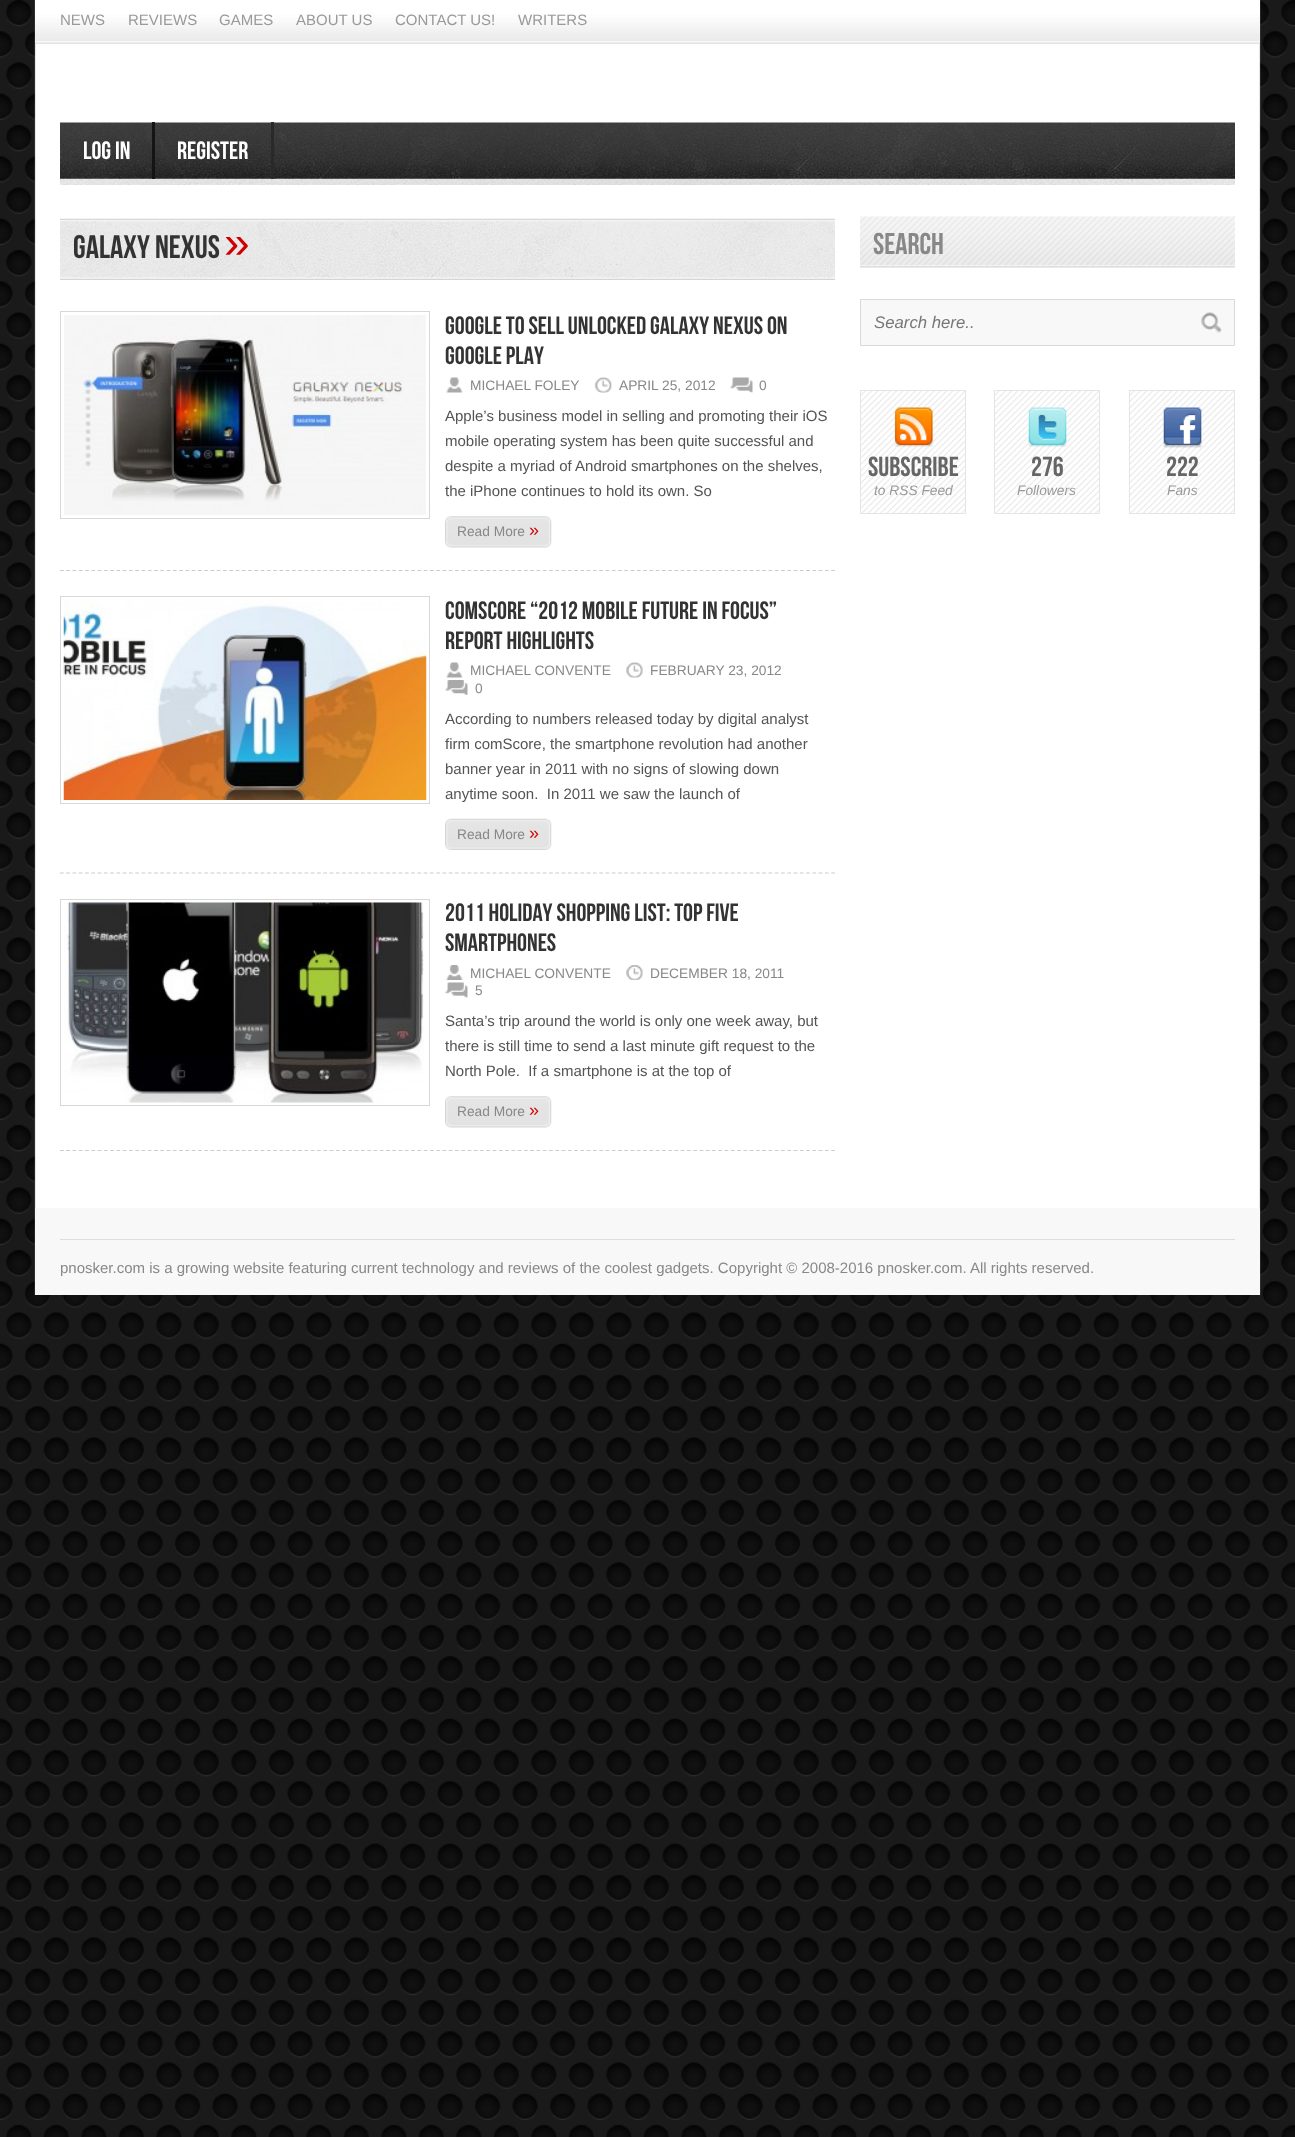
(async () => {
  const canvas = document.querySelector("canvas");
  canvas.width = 1295;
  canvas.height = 2137;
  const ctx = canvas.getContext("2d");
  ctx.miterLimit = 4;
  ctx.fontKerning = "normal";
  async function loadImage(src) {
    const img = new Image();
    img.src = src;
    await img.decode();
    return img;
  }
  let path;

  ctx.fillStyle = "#ffffff";
  ctx.fillRect(0, 0, 1295, 2137);
  ctx.drawImage(await loadImage("img/1.png"), 0, 0, 1295, 2137);
  ctx.drawImage(await loadImage("img/2.png"), 34, 0, 1227, 1295);
  ctx.drawImage(await loadImage("img/3.png"), 35, 0, 1225, 44);
  ctx.drawImage(await loadImage("img/4.png"), 60, 122, 1175, 63);
  ctx.fillStyle = "#141414";
  ctx.fillRect(152, 122, 3, 57);
  ctx.fillStyle = "#292929";
  ctx.fillRect(271, 122, 3, 57);
  ctx.drawImage(await loadImage("img/5.png"), 60, 218, 775, 62);
  path = new Path2D("M60 570.5H835");
  ctx.strokeStyle = "#cccccc";
  ctx.lineWidth = 1.2;
  ctx.setLineDash([3.75, 2.52]);
  ctx.stroke(path);
  ctx.strokeStyle = "#d7d7d7";
  ctx.lineWidth = 1;
  ctx.setLineDash([]);
  ctx.strokeRect(60.5, 311.5, 369, 207);
  ctx.drawImage(await loadImage("img/6.png"), 64, 315, 362, 200);
  ctx.drawImage(await loadImage("img/7.png"), 446, 377, 17, 16);
  ctx.drawImage(await loadImage("img/8.png"), 594, 377, 18, 16);
  ctx.drawImage(await loadImage("img/9.png"), 730, 377, 23, 16);
  ctx.drawImage(await loadImage("img/10.png"), 445, 516, 107, 32);
  path = new Path2D("M60 873H835");
  ctx.strokeStyle = "#cccccc";
  ctx.lineWidth = 1.2;
  ctx.setLineDash([3.75, 2.52]);
  ctx.stroke(path);
  ctx.strokeStyle = "#d7d7d7";
  ctx.lineWidth = 1;
  ctx.setLineDash([]);
  ctx.strokeRect(60.5, 596.5, 369, 207);
  ctx.drawImage(await loadImage("img/11.png"), 63, 600, 364, 200);
  ctx.drawImage(await loadImage("img/7.png"), 446, 662, 17, 16);
  ctx.drawImage(await loadImage("img/12.png"), 626, 662, 17, 16);
  ctx.drawImage(await loadImage("img/13.png"), 445, 680, 23, 15);
  ctx.drawImage(await loadImage("img/14.png"), 445, 818, 107, 32);
  path = new Path2D("M60 1150.5H835");
  ctx.strokeStyle = "#cccccc";
  ctx.lineWidth = 1.2;
  ctx.setLineDash([3.75, 2.52]);
  ctx.stroke(path);
  ctx.strokeStyle = "#d7d7d7";
  ctx.lineWidth = 1;
  ctx.setLineDash([]);
  ctx.strokeRect(60.5, 899.5, 369, 206);
  ctx.drawImage(await loadImage("img/15.png"), 64, 902, 360, 201);
  ctx.drawImage(await loadImage("img/16.png"), 446, 965, 17, 15);
  ctx.drawImage(await loadImage("img/17.png"), 626, 965, 17, 15);
  ctx.drawImage(await loadImage("img/9.png"), 445, 982, 23, 16);
  ctx.drawImage(await loadImage("img/10.png"), 445, 1096, 107, 32);
  ctx.drawImage(await loadImage("img/18.png"), 860, 216, 375, 52);
  ctx.fillStyle = "#f8f8f8";
  ctx.beginPath();
  ctx.rect(860.5, 299.5, 374, 46);
  ctx.fill();
  ctx.strokeStyle = "#d9d9d9";
  ctx.stroke();
  ctx.drawImage(await loadImage("img/19.png"), 1201, 312, 21, 21);
  ctx.drawImage(await loadImage("img/20.png"), 861, 390, 106, 124);
  ctx.strokeStyle = "#e5e5e5";
  ctx.strokeRect(860.5, 390.5, 105, 123);
  ctx.drawImage(await loadImage("img/21.png"), 894, 407, 39, 40);
  ctx.drawImage(await loadImage("img/22.png"), 993, 390, 106, 124);
  ctx.strokeRect(994.5, 390.5, 105, 123);
  ctx.drawImage(await loadImage("img/23.png"), 1028, 407, 39, 40);
  ctx.drawImage(await loadImage("img/24.png"), 1128, 390, 106, 124);
  ctx.strokeRect(1129.5, 390.5, 105, 123);
  ctx.drawImage(await loadImage("img/25.png"), 1163, 407, 39, 41);
  ctx.fillRect(35, 1208, 1225, 87);
  ctx.fillStyle = "#dddddd";
  ctx.fillRect(60, 1239, 1175, 1);
  ctx.font = "15px Liberation Sans";
  ctx.fillStyle = "#999999";
  for (const [text, x, y] of [
    ["NEWS", 60, 25],
    ["REVIEWS", 128, 25],
    ["GAMES", 219, 25],
    ["ABOUT US", 296, 25],
    ["CONTACT US!", 395, 25],
    ["WRITERS", 518, 25],
  ]) {
    ctx.fillText(text, x, y);
  }
  ctx.font = "25px Bebas Neue";
  ctx.fillStyle = "#ffffff";
  ctx.fillText("Log In", 83, 159);
  ctx.fillText("Register", 177, 159);
  ctx.font = "32.5px Bebas Neue";
  ctx.fillStyle = "#333333";
  ctx.fillText("Galaxy Nexus", 73, 258);
  ctx.font = "46px Liberation Sans";
  ctx.fillStyle = "#d00000";
  ctx.fillText("»", 224, 258);
  ctx.font = "25px Bebas Neue";
  ctx.fillStyle = "#333333";
  ctx.fillText("Google to Sell Unlocked Galaxy Nexus on", 445, 334);
  ctx.fillText("Google Play", 445, 364);
  ctx.font = "13.75px Liberation Sans";
  ctx.fillStyle = "#888888";
  for (const [text, x, y] of [
    ["MICHAEL FOLEY", 470, 390],
    ["APRIL 25, 2012", 619, 390],
    ["0", 759, 390],
  ]) {
    ctx.fillText(text, x, y);
  }
  ctx.font = "15px Liberation Sans";
  ctx.fillStyle = "#545454";
  for (const [text, x, y] of [
    ["Apple’s business model in selling and promoting their iOS", 445, 421],
    ["mobile operating system has been quite successful and", 445, 446],
    ["despite a myriad of Android smartphones on the shelves,", 445, 471],
    ["the iPhone continues to hold its own. So", 445, 496],
  ]) {
    ctx.fillText(text, x, y);
  }
  ctx.font = "13.75px Liberation Sans";
  ctx.fillStyle = "#888888";
  ctx.fillText("Read More", 457, 536);
  ctx.font = "18px Liberation Sans";
  ctx.fillStyle = "#d00000";
  ctx.fillText("»", 529, 536);
  ctx.font = "25px Bebas Neue";
  ctx.fillStyle = "#333333";
  ctx.fillText("comScore “2012 Mobile Future in Focus”", 445, 619);
  ctx.fillText("Report Highlights", 445, 649);
  ctx.font = "13.75px Liberation Sans";
  ctx.fillStyle = "#888888";
  for (const [text, x, y] of [
    ["MICHAEL CONVENTE", 470, 675],
    ["FEBRUARY 23, 2012", 650, 675],
    ["0", 475, 693],
  ]) {
    ctx.fillText(text, x, y);
  }
  ctx.font = "15px Liberation Sans";
  ctx.fillStyle = "#545454";
  for (const [text, x, y] of [
    ["According to numbers released today by digital analyst", 445, 724],
    ["firm comScore, the smartphone revolution had another", 445, 749],
    ["banner year in 2011 with no signs of slowing down", 445, 774],
    ["anytime soon.  In 2011 we saw the launch of", 445, 799],
  ]) {
    ctx.fillText(text, x, y);
  }
  ctx.font = "13.75px Liberation Sans";
  ctx.fillStyle = "#888888";
  ctx.fillText("Read More", 457, 839);
  ctx.font = "18px Liberation Sans";
  ctx.fillStyle = "#d00000";
  ctx.fillText("»", 529, 839);
  ctx.font = "25px Bebas Neue";
  ctx.fillStyle = "#333333";
  ctx.fillText("2011 Holiday Shopping List: Top Five", 445, 921);
  ctx.fillText("Smartphones", 445, 951);
  ctx.font = "13.75px Liberation Sans";
  ctx.fillStyle = "#888888";
  for (const [text, x, y] of [
    ["MICHAEL CONVENTE", 470, 978],
    ["DECEMBER 18, 2011", 650, 978],
    ["5", 475, 995],
  ]) {
    ctx.fillText(text, x, y);
  }
  ctx.font = "15px Liberation Sans";
  ctx.fillStyle = "#545454";
  for (const [text, x, y] of [
    ["Santa’s trip around the world is only one week away, but", 445, 1026],
    ["there is still time to send a last minute gift request to the", 445, 1051],
    ["North Pole.  If a smartphone is at the top of", 445, 1076],
  ]) {
    ctx.fillText(text, x, y);
  }
  ctx.font = "13.75px Liberation Sans";
  ctx.fillStyle = "#888888";
  ctx.fillText("Read More", 457, 1116);
  ctx.font = "18px Liberation Sans";
  ctx.fillStyle = "#d00000";
  ctx.fillText("»", 529, 1116);
  ctx.font = "30px Bebas Neue";
  ctx.fillStyle = "#888888";
  ctx.fillText("Search", 873, 254);
  ctx.font = "italic 16.75px Liberation Sans";
  ctx.fillStyle = "#777777";
  ctx.fillText("Search here..", 874, 328);
  ctx.font = "27.5px Bebas Neue";
  ctx.fillStyle = "#666666";
  ctx.fillText("Subscribe", 868, 476);
  ctx.font = "italic 13.75px Liberation Sans";
  ctx.fillStyle = "#999999";
  ctx.fillText("to RSS Feed", 874, 495);
  ctx.font = "27.5px Bebas Neue";
  ctx.fillStyle = "#666666";
  ctx.fillText("276", 1031, 476);
  ctx.font = "italic 13.75px Liberation Sans";
  ctx.fillStyle = "#999999";
  ctx.fillText("Followers", 1017, 495);
  ctx.font = "27.5px Bebas Neue";
  ctx.fillStyle = "#666666";
  ctx.fillText("222", 1166, 476);
  ctx.font = "italic 13.75px Liberation Sans";
  ctx.fillStyle = "#999999";
  ctx.fillText("Fans", 1167, 495);
  ctx.font = "15px Liberation Sans";
  ctx.fillStyle = "#888888";
  ctx.fillText("pnosker.com is a growing website featuring current technology and reviews of the coolest gadgets. Copyright © 2008-2016 pnosker.com. All rights reserved.", 60, 1273);
})();
